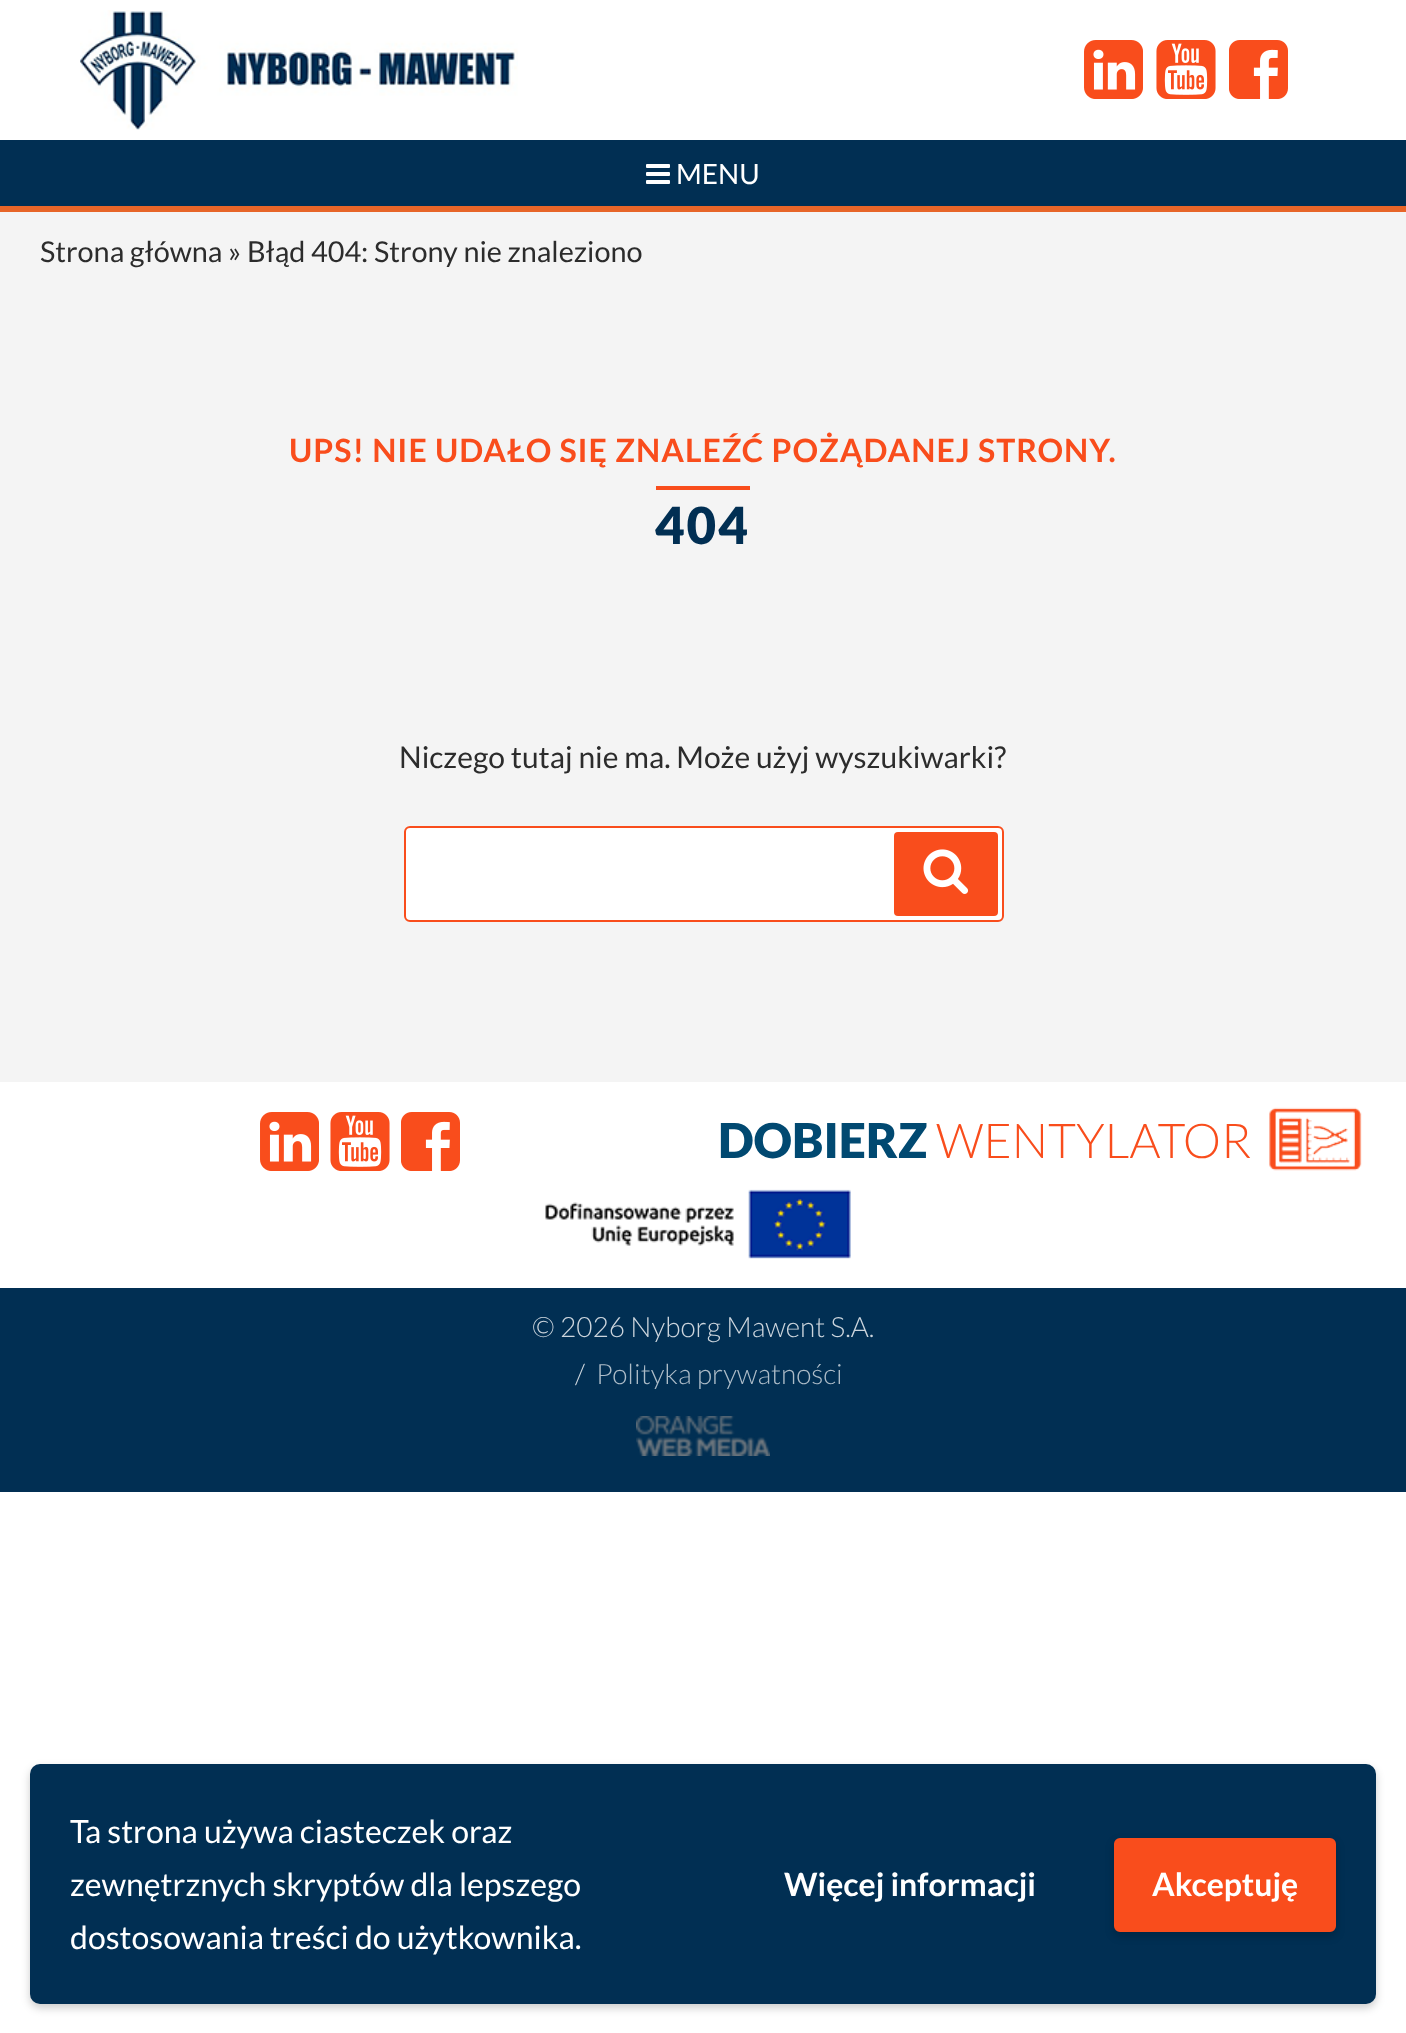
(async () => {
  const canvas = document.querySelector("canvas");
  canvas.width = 1406;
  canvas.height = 2033;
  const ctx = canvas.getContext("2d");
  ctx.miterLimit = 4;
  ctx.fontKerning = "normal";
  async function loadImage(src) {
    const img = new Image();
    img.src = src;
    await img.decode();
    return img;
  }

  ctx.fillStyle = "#ffffff";
  ctx.fillRect(0, 0, 1406, 2033);
  ctx.drawImage(await loadImage("img/1.png"), 80, 10, 438, 120);
  ctx.drawImage(await loadImage("img/2.png"), 1084, 40, 59, 59);
  ctx.drawImage(await loadImage("img/3.png"), 1156, 40, 60, 59);
  ctx.drawImage(await loadImage("img/4.png"), 1229, 40, 59, 59);
  ctx.fillStyle = "#012f53";
  ctx.fillRect(0, 140, 1406, 66);
  ctx.fillStyle = "#e76528";
  ctx.fillRect(0, 206, 1406, 6);
  ctx.drawImage(await loadImage("img/5.png"), 646, 164, 24, 20);
  ctx.fillStyle = "#f4f4f4";
  ctx.fillRect(0, 212, 1406, 870);
  ctx.fillStyle = "#f94d1c";
  ctx.fillRect(656, 486, 94, 4);
  ctx.fillStyle = "#ffffff";
  ctx.beginPath();
  ctx.roundRect(405, 827, 598, 94, 5);
  ctx.fill();
  ctx.strokeStyle = "#f94d1c";
  ctx.lineWidth = 2;
  ctx.stroke();
  ctx.fillStyle = "#f94d1c";
  ctx.beginPath();
  ctx.roundRect(894, 832, 104, 84, 4);
  ctx.fill();
  ctx.drawImage(await loadImage("img/6.png"), 923, 849, 46, 45);
  ctx.fillStyle = "#012f53";
  ctx.fillRect(0, 1288, 1406, 204);
  ctx.drawImage(await loadImage("img/2.png"), 260, 1112, 59, 59);
  ctx.drawImage(await loadImage("img/3.png"), 330, 1112, 60, 59);
  ctx.drawImage(await loadImage("img/4.png"), 401, 1112, 59, 59);
  ctx.drawImage(await loadImage("img/7.png"), 1269, 1107, 93, 64);
  ctx.drawImage(await loadImage("img/8.png"), 545, 1189, 306, 70);
  ctx.drawImage(await loadImage("img/9.png"), 636, 1416, 134, 40);
  ctx.fillStyle = "rgba(0, 0, 0, 0.2)";
  ctx.filter = "blur(4px)";
  ctx.beginPath();
  ctx.roundRect(30, 1768, 1346, 240, 10);
  ctx.fill();
  ctx.filter = "none";
  ctx.fillStyle = "#012f53";
  ctx.beginPath();
  ctx.roundRect(30, 1764, 1346, 240, 10);
  ctx.fill();
  ctx.fillStyle = "rgba(0, 0, 0, 0.2)";
  ctx.filter = "blur(4px)";
  ctx.beginPath();
  ctx.roundRect(1114, 1842, 222, 94, 6);
  ctx.fill();
  ctx.filter = "none";
  ctx.fillStyle = "#f94d1c";
  ctx.beginPath();
  ctx.roundRect(1115, 1839, 220, 92, 5);
  ctx.fill();
  ctx.stroke();
  ctx.font = "28px Lato";
  ctx.fillStyle = "#ffffff";
  ctx.fillText("MENU", 676, 184);
  ctx.font = "28.8px Lato";
  ctx.fillStyle = "#2c2c2c";
  ctx.fillText("Strona główna » Błąd 404: Strony nie znaleziono", 40, 262);
  ctx.letterSpacing = "1px";
  ctx.font = "bold 32px Lato";
  ctx.fillStyle = "#f94d1c";
  ctx.fillText("UPS! NIE UDAŁO SIĘ ZNALEŹĆ POŻĄDANEJ STRONY.", 289, 462);
  ctx.letterSpacing = "2px";
  ctx.font = "900 51px Lato";
  ctx.fillStyle = "#012f53";
  ctx.fillText("404", 655, 544);
  ctx.letterSpacing = "0px";
  ctx.font = "30px Lato";
  ctx.fillStyle = "#2c2c2c";
  ctx.fillText("Niczego tutaj nie ma. Może użyj wyszukiwarki?", 399, 768);
  ctx.font = "900 48px Lato";
  ctx.fillStyle = "#014971";
  ctx.fillText("DOBIERZ", 718, 1158);
  ctx.font = "300 48px Lato";
  ctx.fillStyle = "#f94d1c";
  ctx.fillText("WENTYLATOR", 936, 1158);
  ctx.font = "300 28px Lato";
  ctx.fillStyle = "#ccd5dd";
  ctx.fillText("© 2026 Nyborg Mawent S.A.", 532, 1337);
  ctx.fillText("/", 575, 1384);
  ctx.fillStyle = "#adbcc8";
  ctx.fillText("Polityka prywatności", 596, 1384);
  ctx.font = "32px Lato";
  ctx.fillStyle = "#ffffff";
  for (const [text, x, y] of [
    ["Ta strona używa ciasteczek oraz", 70, 1843],
    ["zewnętrznych skryptów dla lepszego", 70, 1896],
    ["dostosowania treści do użytkownika.", 70, 1949],
  ]) {
    ctx.fillText(text, x, y);
  }
  ctx.font = "bold 32px Lato";
  ctx.fillText("Więcej informacji", 784, 1896);
  ctx.fillText("Akceptuję", 1152, 1896);
})();
